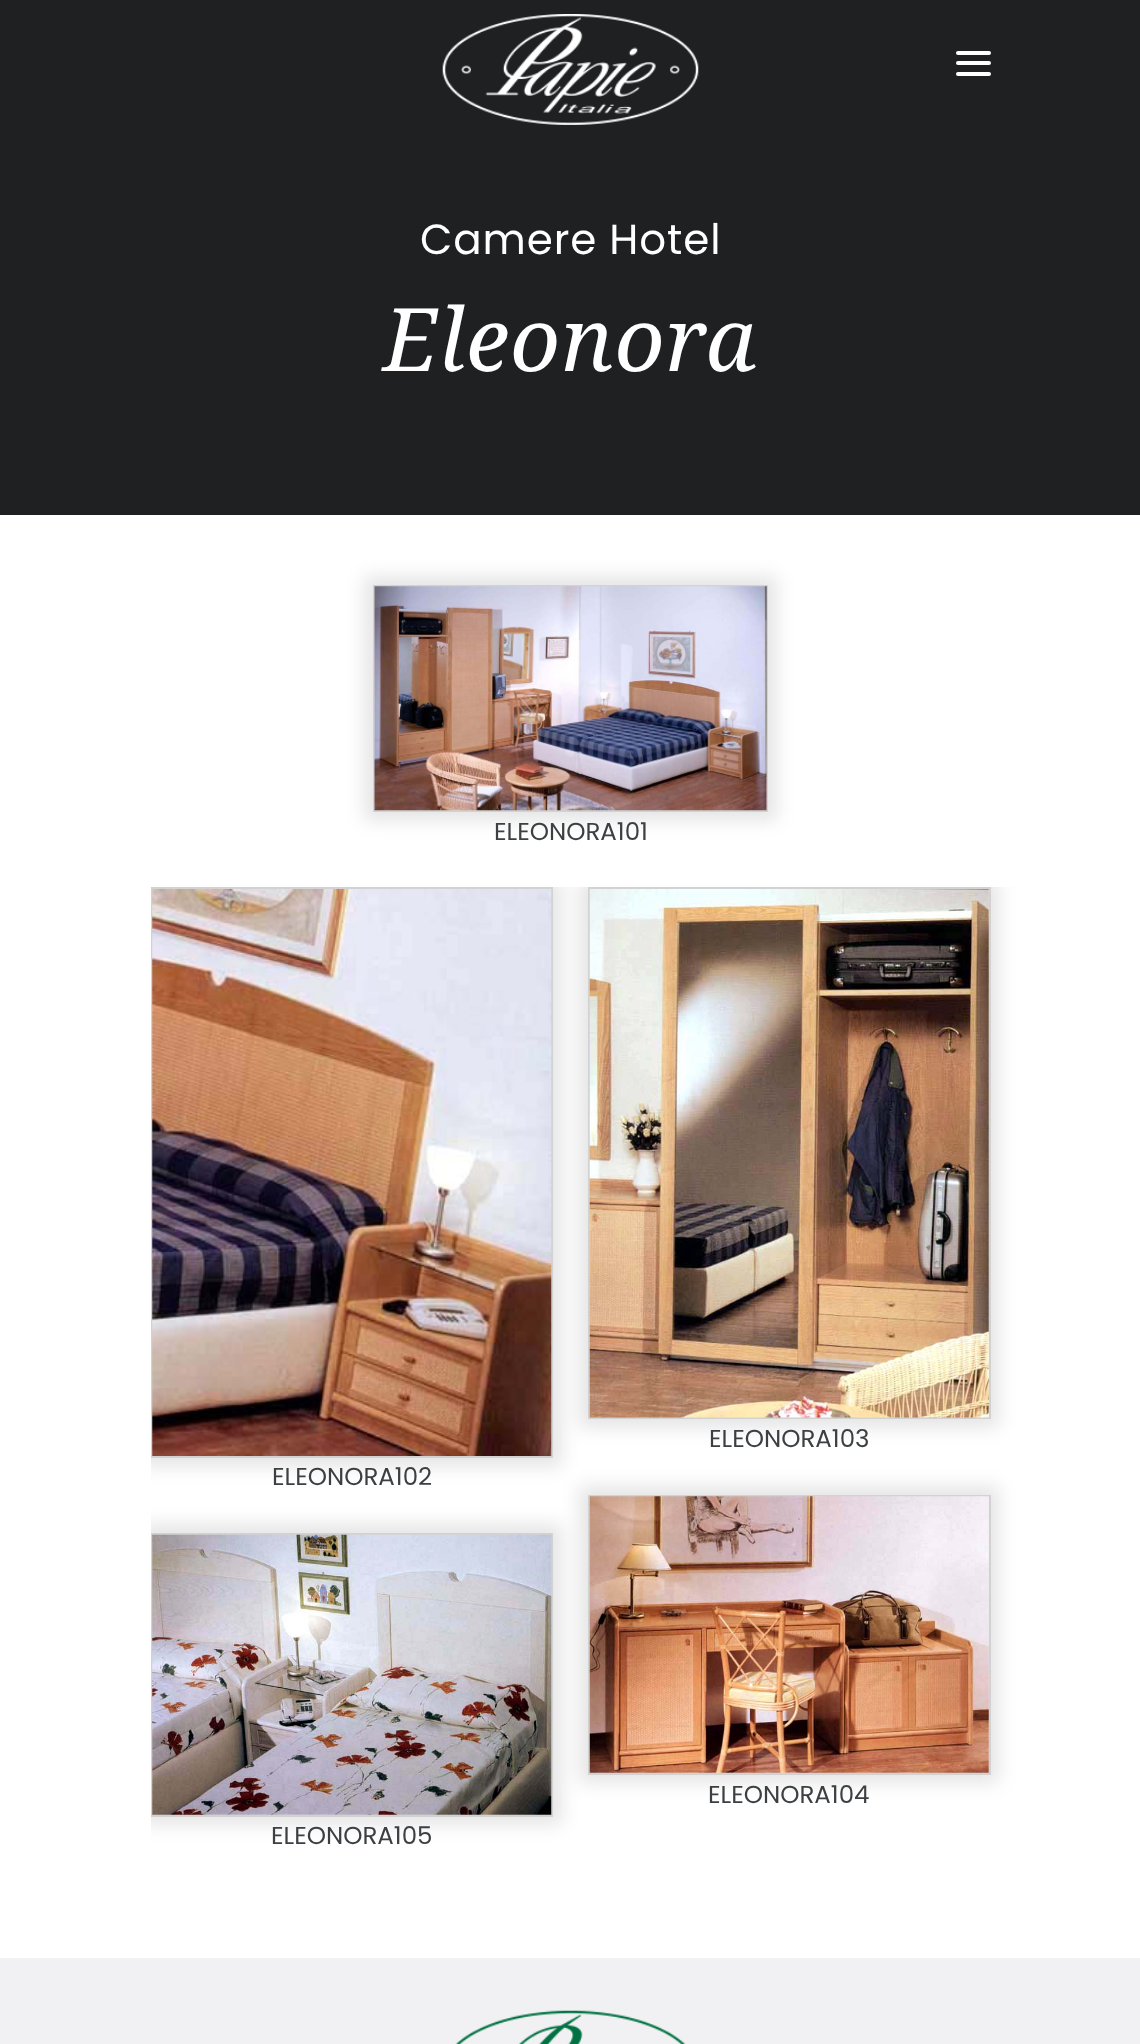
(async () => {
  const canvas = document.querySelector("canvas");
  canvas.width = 1140;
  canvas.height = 2044;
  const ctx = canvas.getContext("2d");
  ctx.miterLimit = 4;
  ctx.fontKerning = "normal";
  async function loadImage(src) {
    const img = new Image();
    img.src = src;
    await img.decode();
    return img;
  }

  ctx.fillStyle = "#f1f1f3";
  ctx.fillRect(0, 0, 1140, 2044);
  ctx.fillStyle = "#1e2022";
  ctx.fillRect(0, 0, 1140, 515);
  ctx.drawImage(await loadImage("img/1.png"), 442, 14, 257, 111);
  ctx.fillStyle = "#ffffff";
  ctx.beginPath();
  ctx.roundRect(956, 61, 35, 4, 2);
  ctx.fill();
  ctx.beginPath();
  ctx.roundRect(956, 51, 35, 4, 2);
  ctx.fill();
  ctx.beginPath();
  ctx.roundRect(956, 72, 35, 4, 2);
  ctx.fill();
  ctx.fillRect(0, 515, 1140, 1443);
  ctx.fillStyle = "rgba(0, 0, 0, 0.1)";
  ctx.filter = "blur(9px)";
  ctx.beginPath();
  ctx.rect(364, 576, 413, 245);
  ctx.fill();
  ctx.filter = "none";
  ctx.strokeStyle = "#d2d2d2";
  ctx.lineWidth = 2;
  ctx.strokeRect(374, 586, 393, 225);
  ctx.drawImage(await loadImage("img/2.png"), 374, 586, 393, 225);
  ctx.save();
  ctx.beginPath();
  ctx.rect(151, 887, 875, 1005);
  ctx.clip();
  ctx.filter = "blur(9px)";
  ctx.beginPath();
  ctx.rect(142, 879, 420, 588);
  ctx.fill();
  ctx.filter = "none";
  ctx.restore();
  ctx.strokeRect(152, 888, 400, 569);
  ctx.drawImage(await loadImage("img/4.png"), 152, 889, 400, 567);
  ctx.save();
  ctx.beginPath();
  ctx.rect(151, 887, 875, 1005);
  ctx.clip();
  ctx.filter = "blur(9px)";
  ctx.beginPath();
  ctx.rect(579, 879, 420, 549);
  ctx.fill();
  ctx.filter = "none";
  ctx.restore();
  ctx.strokeRect(589, 888, 401, 530);
  ctx.drawImage(await loadImage("img/3.png"), 589, 889, 400, 529);
  ctx.filter = "blur(9px)";
  ctx.beginPath();
  ctx.rect(579, 1486, 420, 297);
  ctx.fill();
  ctx.filter = "none";
  ctx.strokeRect(589, 1496, 401, 278);
  ctx.drawImage(await loadImage("img/5.png"), 589, 1496, 400, 277);
  ctx.save();
  ctx.beginPath();
  ctx.rect(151, 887, 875, 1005);
  ctx.clip();
  ctx.filter = "blur(9px)";
  ctx.beginPath();
  ctx.rect(142, 1524, 420, 301);
  ctx.fill();
  ctx.filter = "none";
  ctx.restore();
  ctx.strokeRect(152, 1534, 400, 282);
  ctx.drawImage(await loadImage("img/6.png"), 152, 1534, 400, 281);
  ctx.drawImage(await loadImage("img/7.png"), 455, 2010, 231, 34);
  ctx.letterSpacing = "0.9px";
  ctx.font = "42px Poppins";
  ctx.fillStyle = "#ffffff";
  ctx.fillText("Camere Hotel", 420, 254);
  ctx.font = "italic 87.5px Noto Serif";
  ctx.fillText("Eleonora", 383, 371);
  ctx.letterSpacing = "0px";
  ctx.font = "24.5px Poppins";
  ctx.fillStyle = "#3c4043";
  for (const [text, x, y] of [
    ["ELEONORA101", 494, 840],
    ["ELEONORA103", 709, 1447],
    ["ELEONORA102", 272, 1485],
    ["ELEONORA104", 708, 1803],
    ["ELEONORA105", 271, 1844],
  ]) {
    ctx.fillText(text, x, y);
  }
})();
